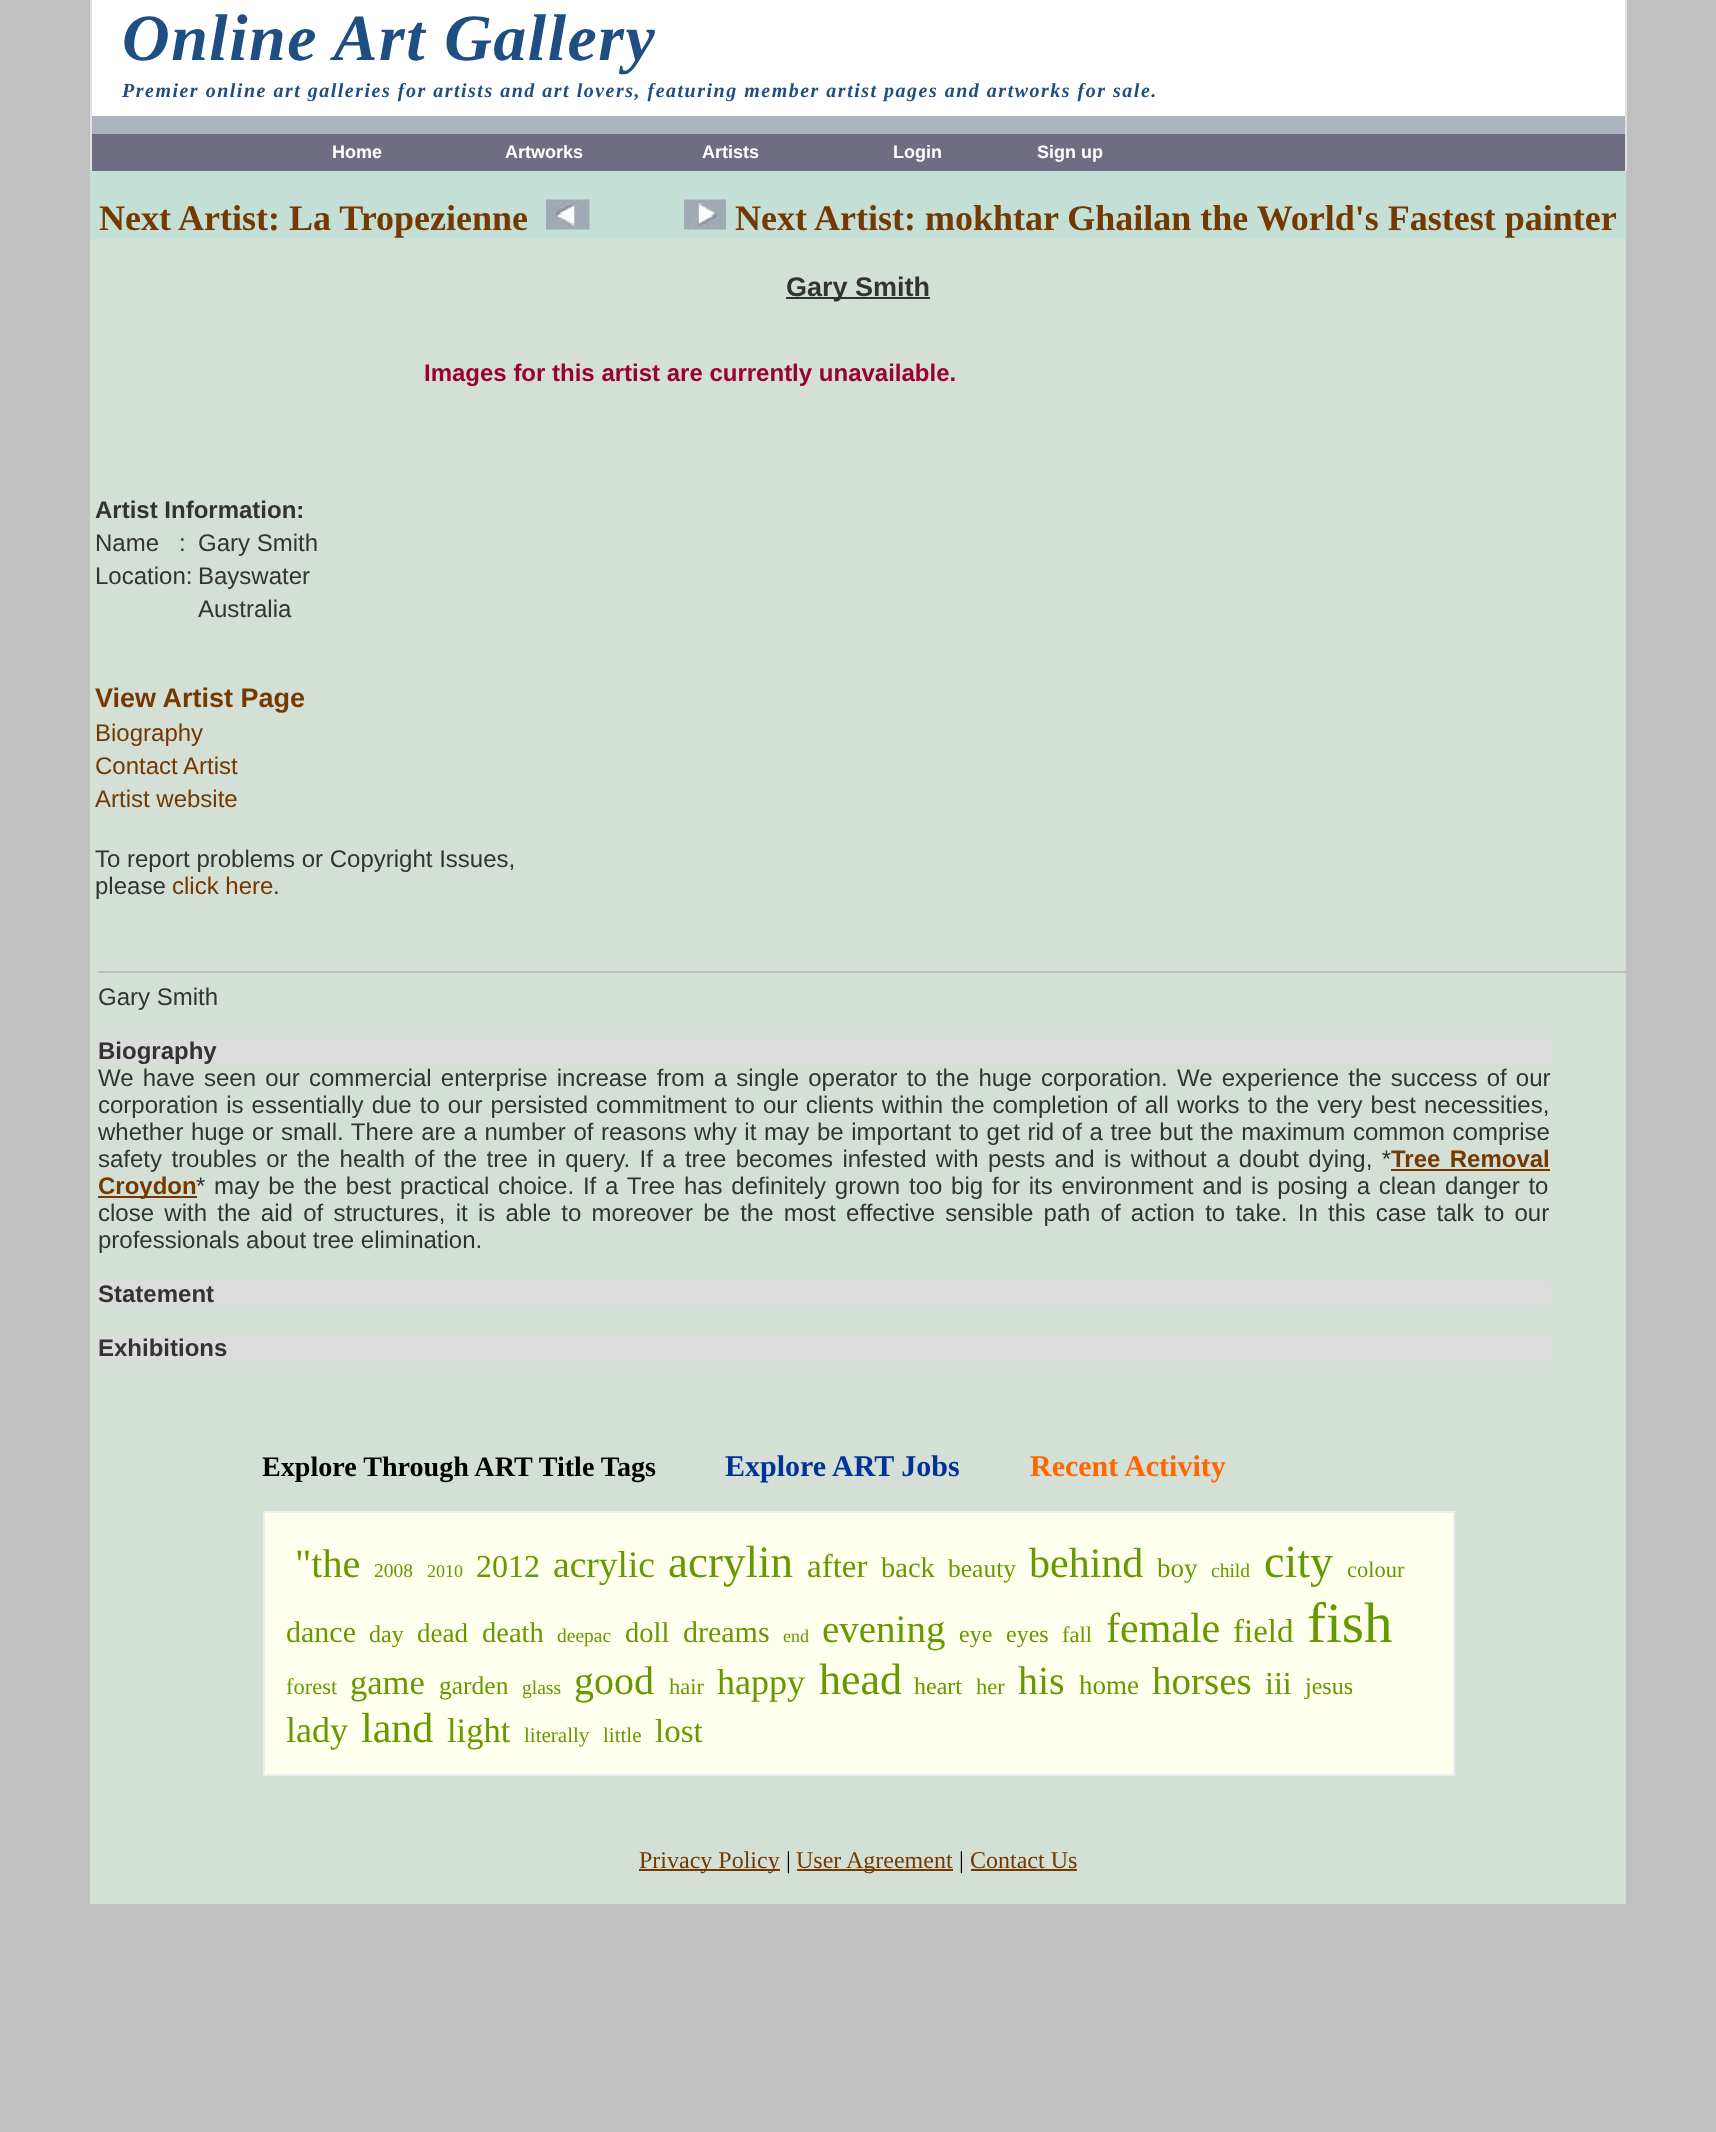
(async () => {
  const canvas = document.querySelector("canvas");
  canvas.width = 1716;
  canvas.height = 2132;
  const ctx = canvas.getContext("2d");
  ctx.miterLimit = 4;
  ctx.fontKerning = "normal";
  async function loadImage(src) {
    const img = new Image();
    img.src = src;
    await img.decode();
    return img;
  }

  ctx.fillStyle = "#c0c0c0";
  ctx.fillRect(0, 0, 1716, 2132);
  for (const [x, y, w, h, color] of [
    [92, 0, 1533, 116, "#ffffff"],
    [90, 0, 2, 171, "#e0e0e0"],
    [92, 116, 1533, 18, "#adb3bc"],
    [92, 134, 1533, 37, "#6f6d82"],
    [1625, 0, 2, 171, "#e0e0e0"],
    [90, 171, 1536, 68, "#c4dfd5"],
  ]) {
    ctx.fillStyle = color;
    ctx.fillRect(x, y, w, h);
  }
  ctx.drawImage(await loadImage("img/1.png"), 546, 199, 44, 31);
  ctx.drawImage(await loadImage("img/2.png"), 684, 199, 42, 31);
  for (const [x, y, w, h, color] of [
    [90, 239, 1536, 1665, "#d4dfd5"],
    [786, 297, 144, 2, "#333333"],
    [98, 971, 1528, 2, "#bfbfbf"],
    [98, 1038, 1452, 27, "#dcdcdc"],
    [1391, 1169, 159, 2, "#733900"],
    [98, 1196, 99, 2, "#733900"],
    [98, 1281, 1452, 27, "#dcdcdc"],
    [98, 1335, 1452, 27, "#dcdcdc"],
  ]) {
    ctx.fillStyle = color;
    ctx.fillRect(x, y, w, h);
  }
  ctx.fillStyle = "#ffffee";
  ctx.beginPath();
  ctx.rect(264, 1512, 1190, 263);
  ctx.fill();
  ctx.strokeStyle = "#eeeeee";
  ctx.lineWidth = 2;
  ctx.stroke();
  for (const [x, y, w, h, color] of [
    [639, 1869, 141, 2, "#733900"],
    [797, 1869, 156, 2, "#733900"],
    [971, 1869, 106, 2, "#733900"],
  ]) {
    ctx.fillStyle = color;
    ctx.fillRect(x, y, w, h);
  }
  ctx.letterSpacing = "1.5px";
  ctx.font = "italic bold 66px Liberation Serif";
  ctx.fillStyle = "#1e4e82";
  ctx.fillText("Online Art Gallery", 122, 60);
  ctx.font = "italic bold 20px Liberation Serif";
  ctx.fillText("Premier online art galleries for artists and art lovers, featuring member artist pages and artworks for sale.", 122, 97);
  ctx.letterSpacing = "0px";
  ctx.font = "bold 18px Liberation Sans";
  ctx.fillStyle = "#ffffff";
  for (const [text, x, y] of [
    ["Home", 332, 158],
    ["Artworks", 505, 158],
    ["Artists", 702, 158],
    ["Login", 893, 158],
    ["Sign up", 1037, 158],
  ]) {
    ctx.fillText(text, x, y);
  }
  ctx.font = "bold 36px Liberation Serif";
  ctx.fillStyle = "#733900";
  ctx.fillText("Next Artist: La Tropezienne", 99, 230);
  ctx.fillText("Next Artist: mokhtar Ghailan the World's Fastest painter", 735, 230);
  ctx.font = "bold 27px Liberation Sans";
  ctx.fillStyle = "#333333";
  ctx.fillText("Gary Smith", 786, 296);
  ctx.font = "bold 24px Liberation Sans";
  ctx.fillStyle = "#990033";
  ctx.fillText("Images for this artist are currently unavailable.", 424, 381);
  ctx.fillStyle = "#333333";
  ctx.fillText("Artist Information:", 95, 518);
  ctx.font = "24px Liberation Sans";
  for (const [text, x, y] of [
    ["Name   :", 95, 551],
    ["Gary Smith", 198, 551],
    ["Location:", 95, 584],
    ["Bayswater", 198, 584],
    ["Australia", 198, 617],
  ]) {
    ctx.fillText(text, x, y);
  }
  ctx.font = "bold 27px Liberation Sans";
  ctx.fillStyle = "#733900";
  ctx.fillText("View Artist Page", 95, 707);
  ctx.font = "24px Liberation Sans";
  for (const [text, x, y] of [
    ["Biography", 95, 741],
    ["Contact Artist", 95, 774],
    ["Artist website", 95, 807],
  ]) {
    ctx.fillText(text, x, y);
  }
  ctx.fillStyle = "#333333";
  ctx.fillText("To report problems or Copyright Issues,", 95, 867);
  ctx.fillText("please", 95, 894);
  ctx.fillStyle = "#733900";
  ctx.fillText("click here", 172, 894);
  ctx.fillStyle = "#333333";
  ctx.fillText(".", 273, 894);
  ctx.fillText("Gary Smith", 98, 1005);
  ctx.font = "bold 24px Liberation Sans";
  ctx.fillText("Biography", 98, 1059);
  ctx.wordSpacing = "2.5px";
  ctx.font = "24px Liberation Sans";
  ctx.fillText("We have seen our commercial enterprise increase from a single operator to the huge corporation. We experience the success of our", 98, 1086);
  ctx.wordSpacing = "1.4px";
  ctx.fillText("corporation is essentially due to our persisted commitment to our clients within the completion of all works to the very best necessities,", 98, 1113);
  ctx.wordSpacing = "0.95px";
  ctx.fillText("whether huge or small. There are a number of reasons why it may be important to get rid of a tree but the maximum common comprise", 98, 1140);
  ctx.wordSpacing = "2.7px";
  ctx.fillText("safety troubles or the health of the tree in query. If a tree becomes infested with pests and is without a doubt dying, *", 98, 1167);
  ctx.font = "bold 24px Liberation Sans";
  ctx.fillStyle = "#733900";
  ctx.fillText("Tree Removal", 1391, 1167);
  ctx.wordSpacing = "0px";
  ctx.fillText("Croydon", 98, 1194);
  ctx.wordSpacing = "2.1px";
  ctx.font = "24px Liberation Sans";
  ctx.fillStyle = "#333333";
  ctx.fillText("* may be the best practical choice. If a Tree has definitely grown too big for its environment and is posing a clean danger to", 196, 1194);
  ctx.wordSpacing = "3.6px";
  ctx.fillText("close with the aid of structures, it is able to moreover be the most effective sensible path of action to take. In this case talk to our", 98, 1221);
  ctx.wordSpacing = "0px";
  ctx.fillText("professionals about tree elimination.", 98, 1248);
  ctx.font = "bold 24px Liberation Sans";
  ctx.fillText("Statement", 98, 1302);
  ctx.fillText("Exhibitions", 98, 1356);
  ctx.font = "bold 28.1px Liberation Serif";
  ctx.fillStyle = "#000000";
  ctx.fillText("Explore Through ART Title Tags", 262, 1476);
  ctx.font = "bold 30px Liberation Serif";
  ctx.fillStyle = "#003399";
  ctx.fillText("Explore ART Jobs", 725, 1476);
  ctx.fillStyle = "#ff6600";
  ctx.fillText("Recent Activity", 1030, 1476);
  ctx.font = "40px Liberation Serif";
  ctx.fillStyle = "#669900";
  ctx.fillText("\"the", 295, 1577);
  ctx.font = "19.5px Liberation Serif";
  ctx.fillText("2008", 374, 1577);
  ctx.font = "18px Liberation Serif";
  ctx.fillText("2010", 427, 1577);
  ctx.font = "32px Liberation Serif";
  ctx.fillText("2012", 476, 1577);
  ctx.font = "37.5px Liberation Serif";
  ctx.fillText("acrylic", 553, 1577);
  ctx.font = "45px Liberation Serif";
  ctx.fillText("acrylin", 668, 1577);
  ctx.font = "33px Liberation Serif";
  ctx.fillText("after", 807, 1577);
  ctx.font = "28.5px Liberation Serif";
  ctx.fillText("back", 881, 1577);
  ctx.font = "25.5px Liberation Serif";
  ctx.fillText("beauty", 948, 1577);
  ctx.font = "42px Liberation Serif";
  ctx.fillText("behind", 1029, 1577);
  ctx.font = "27px Liberation Serif";
  ctx.fillText("boy", 1157, 1577);
  ctx.font = "19.5px Liberation Serif";
  ctx.fillText("child", 1211, 1577);
  ctx.font = "46px Liberation Serif";
  ctx.fillText("city", 1264, 1577);
  ctx.font = "22.5px Liberation Serif";
  ctx.fillText("colour", 1347, 1577);
  ctx.font = "30px Liberation Serif";
  ctx.fillText("dance", 286, 1642);
  ctx.font = "24px Liberation Serif";
  ctx.fillText("day", 369, 1642);
  ctx.font = "27px Liberation Serif";
  ctx.fillText("dead", 417, 1642);
  ctx.font = "28.5px Liberation Serif";
  ctx.fillText("death", 482, 1642);
  ctx.font = "19.5px Liberation Serif";
  ctx.fillText("deepac", 557, 1642);
  ctx.font = "28.5px Liberation Serif";
  ctx.fillText("doll", 625, 1642);
  ctx.font = "30px Liberation Serif";
  ctx.fillText("dreams", 683, 1642);
  ctx.font = "18px Liberation Serif";
  ctx.fillText("end", 783, 1642);
  ctx.font = "39px Liberation Serif";
  ctx.fillText("evening", 822, 1642);
  ctx.font = "24px Liberation Serif";
  ctx.fillText("eye", 959, 1642);
  ctx.fillText("eyes", 1006, 1642);
  ctx.font = "22.5px Liberation Serif";
  ctx.fillText("fall", 1062, 1642);
  ctx.font = "42px Liberation Serif";
  ctx.fillText("female", 1106, 1642);
  ctx.font = "33px Liberation Serif";
  ctx.fillText("field", 1233, 1642);
  ctx.font = "57px Liberation Serif";
  ctx.fillText("fish", 1307, 1642);
  ctx.font = "22.5px Liberation Serif";
  ctx.fillText("forest", 286, 1694);
  ctx.font = "34.5px Liberation Serif";
  ctx.fillText("game", 350, 1694);
  ctx.font = "25.5px Liberation Serif";
  ctx.fillText("garden", 439, 1694);
  ctx.font = "19.5px Liberation Serif";
  ctx.fillText("glass", 522, 1694);
  ctx.font = "40px Liberation Serif";
  ctx.fillText("good", 574, 1694);
  ctx.font = "22.5px Liberation Serif";
  ctx.fillText("hair", 669, 1694);
  ctx.font = "36px Liberation Serif";
  ctx.fillText("happy", 717, 1694);
  ctx.font = "44px Liberation Serif";
  ctx.fillText("head", 819, 1694);
  ctx.font = "24px Liberation Serif";
  ctx.fillText("heart", 914, 1694);
  ctx.font = "22.5px Liberation Serif";
  ctx.fillText("her", 976, 1694);
  ctx.font = "40px Liberation Serif";
  ctx.fillText("his", 1018, 1694);
  ctx.font = "27px Liberation Serif";
  ctx.fillText("home", 1079, 1694);
  ctx.font = "39px Liberation Serif";
  ctx.fillText("horses", 1152, 1694);
  ctx.font = "32px Liberation Serif";
  ctx.fillText("iii", 1265, 1694);
  ctx.font = "24px Liberation Serif";
  ctx.fillText("jesus", 1305, 1694);
  ctx.font = "36px Liberation Serif";
  ctx.fillText("lady", 286, 1742);
  ctx.font = "42px Liberation Serif";
  ctx.fillText("land", 361, 1742);
  ctx.font = "34.5px Liberation Serif";
  ctx.fillText("light", 447, 1742);
  ctx.font = "21px Liberation Serif";
  ctx.fillText("literally", 524, 1742);
  ctx.fillText("little", 603, 1742);
  ctx.font = "33px Liberation Serif";
  ctx.fillText("lost", 655, 1742);
  ctx.font = "24px Liberation Serif";
  ctx.fillStyle = "#733900";
  ctx.fillText("Privacy Policy", 639, 1868);
  ctx.fillStyle = "#000000";
  ctx.fillText("|", 786, 1868);
  ctx.fillStyle = "#733900";
  ctx.fillText("User Agreement", 796, 1868);
  ctx.fillStyle = "#000000";
  ctx.fillText("|", 959, 1868);
  ctx.fillStyle = "#733900";
  ctx.fillText("Contact Us", 970, 1868);
})();
